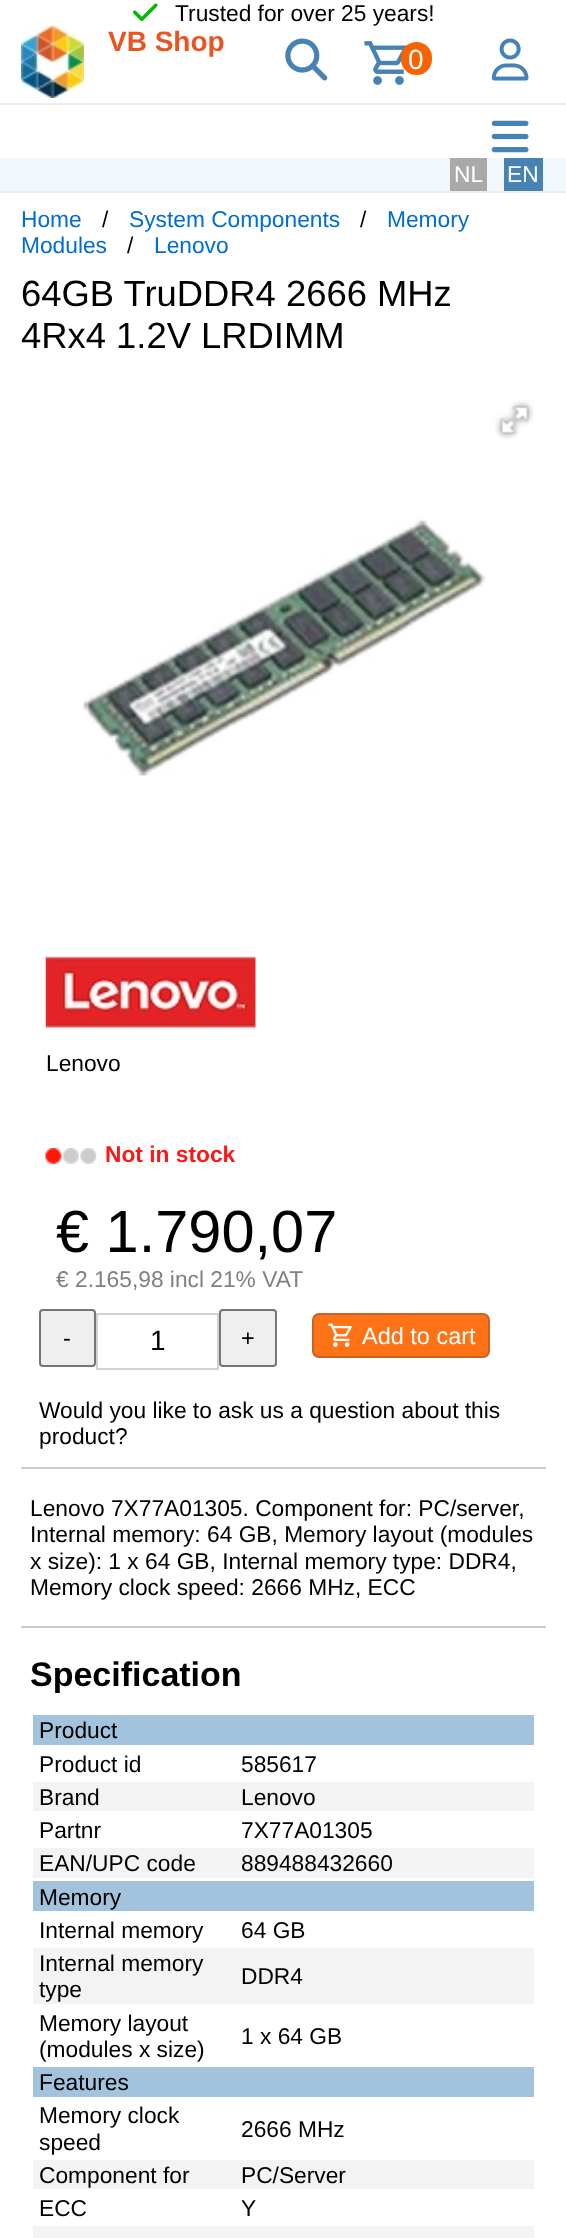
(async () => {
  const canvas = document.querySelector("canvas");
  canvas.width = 566;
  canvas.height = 2238;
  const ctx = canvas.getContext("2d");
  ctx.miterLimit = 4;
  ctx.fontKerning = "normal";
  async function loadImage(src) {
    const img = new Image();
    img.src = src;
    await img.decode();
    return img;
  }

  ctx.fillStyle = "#ffffff";
  ctx.fillRect(0, 0, 566, 2238);
  ctx.fillStyle = "#eeeded";
  ctx.fillRect(0, 191, 566, 2);
  ctx.drawImage(await loadImage("img/1.png"), 133, 3, 25, 18);
  ctx.fillRect(0, 103, 566, 2);
  ctx.drawImage(await loadImage("img/2.png"), 21, 26, 63, 72);
  ctx.drawImage(await loadImage("img/3.png"), 285, 38, 43, 43);
  ctx.drawImage(await loadImage("img/4.png"), 364, 41, 44, 44);
  ctx.fillStyle = "#f86200";
  ctx.beginPath();
  ctx.roundRect(401, 42, 31, 33, 15.5);
  ctx.fill();
  ctx.drawImage(await loadImage("img/5.png"), 491, 38, 38, 43);
  ctx.drawImage(await loadImage("img/6.png"), 491, 120, 38, 33);
  for (const [x, y, w, h, color] of [
    [0, 158, 566, 33, "#f2f7fc"],
    [450, 158, 37, 33, "#a9a9a9"],
    [504, 158, 39, 33, "#4682b4"],
  ]) {
    ctx.fillStyle = color;
    ctx.fillRect(x, y, w, h);
  }
  ctx.drawImage(await loadImage("img/7.png"), 495, 400, 39, 39);
  ctx.drawImage(await loadImage("img/8.png"), 83, 519, 403, 257);
  ctx.drawImage(await loadImage("img/9.png"), 45, 955, 211, 75);
  ctx.drawImage(await loadImage("img/10.png"), 45, 1148, 52, 16);
  ctx.fillStyle = "#efefef";
  ctx.beginPath();
  ctx.roundRect(40, 1310, 55, 56, 3);
  ctx.fill();
  ctx.strokeStyle = "#767676";
  ctx.lineWidth = 2;
  ctx.stroke();
  ctx.strokeStyle = "#d3d3d3";
  ctx.strokeRect(97, 1314, 121, 55);
  ctx.beginPath();
  ctx.roundRect(220, 1310, 56, 56, 3);
  ctx.fill();
  ctx.strokeStyle = "#767676";
  ctx.stroke();
  ctx.fillStyle = "#ff7216";
  ctx.beginPath();
  ctx.roundRect(313, 1314, 176, 43, 6);
  ctx.fill();
  ctx.strokeStyle = "#c86228";
  ctx.stroke();
  ctx.drawImage(await loadImage("img/11.png"), 328, 1323, 24, 24);
  for (const [x, y, w, h, color] of [
    [21, 1467, 525, 2, "#cccccc"],
    [21, 1626, 525, 2, "#cccccc"],
    [33, 1715, 501, 30, "#a3c2db"],
    [33, 1782, 501, 29, "#f3f3f3"],
    [33, 1848, 501, 30, "#f3f3f3"],
    [33, 1881, 501, 30, "#a3c2db"],
    [33, 1948, 501, 56, "#f3f3f3"],
    [33, 2067, 501, 30, "#a3c2db"],
    [33, 2160, 501, 29, "#f3f3f3"],
    [33, 2226, 501, 12, "#f3f3f3"],
  ]) {
    ctx.fillStyle = color;
    ctx.fillRect(x, y, w, h);
  }
  ctx.font = "22.75px Liberation Sans";
  ctx.fillStyle = "#000000";
  ctx.fillText("Trusted for over 25 years!", 175, 21);
  ctx.font = "bold 28px Liberation Sans";
  ctx.fillStyle = "#e95420";
  ctx.fillText("VB Shop", 108, 51);
  ctx.font = "28px Liberation Sans";
  ctx.fillStyle = "#ffffff";
  ctx.fillText("0", 408, 69);
  ctx.font = "22.75px Liberation Sans";
  ctx.fillText("NL", 454, 182);
  ctx.fillText("EN", 507, 182);
  ctx.fillStyle = "#006dd3";
  ctx.fillText("Home", 21, 227);
  ctx.fillStyle = "#000000";
  ctx.fillText("/", 102, 227);
  ctx.fillStyle = "#006dd3";
  ctx.fillText("System Components", 129, 227);
  ctx.fillStyle = "#000000";
  ctx.fillText("/", 360, 227);
  ctx.fillStyle = "#006dd3";
  ctx.fillText("Memory", 387, 227);
  ctx.fillText("Modules", 21, 253);
  ctx.fillStyle = "#000000";
  ctx.fillText("/", 127, 253);
  ctx.fillStyle = "#006dd3";
  ctx.fillText("Lenovo", 154, 253);
  ctx.font = "36.4px Liberation Sans";
  ctx.fillStyle = "#000000";
  ctx.fillText("64GB TruDDR4 2666 MHz", 21, 306);
  ctx.fillText("4Rx4 1.2V LRDIMM", 21, 348);
  ctx.font = "22.75px Liberation Sans";
  ctx.fillText("Lenovo", 46, 1071);
  ctx.font = "bold 22.75px Liberation Sans";
  ctx.fillStyle = "#ff1717";
  ctx.fillText("Not in stock", 105, 1162);
  ctx.font = "59.5px Liberation Sans";
  ctx.fillStyle = "#000000";
  ctx.fillText("€ 1.790,07", 56, 1252);
  ctx.font = "22.75px Liberation Sans";
  ctx.fillStyle = "#808080";
  ctx.fillText("€ 2.165,98 incl 21% VAT", 56, 1287);
  ctx.font = "23.5px Liberation Sans";
  ctx.fillStyle = "#000000";
  ctx.fillText("-", 63, 1346);
  ctx.font = "28px Liberation Sans";
  ctx.fillText("1", 150, 1350);
  ctx.font = "23.5px Liberation Sans";
  ctx.fillText("+", 241, 1346);
  ctx.fillStyle = "#ffffff";
  ctx.fillText("Add to cart", 362, 1344);
  ctx.font = "22.75px Liberation Sans";
  ctx.fillStyle = "#000000";
  for (const [text, x, y] of [
    ["Would you like to ask us a question about this", 39, 1418],
    ["product?", 39, 1444],
    ["Lenovo 7X77A01305. Component for: PC/server,", 30, 1516],
    ["Internal memory: 64 GB, Memory layout (modules", 30, 1542],
    ["x size): 1 x 64 GB, Internal memory type: DDR4,", 30, 1569],
    ["Memory clock speed: 2666 MHz, ECC", 30, 1595],
  ]) {
    ctx.fillText(text, x, y);
  }
  ctx.font = "bold 34px Liberation Sans";
  ctx.fillText("Specification", 30, 1686);
  ctx.font = "22.75px Liberation Sans";
  for (const [text, x, y] of [
    ["Product", 39, 1738],
    ["Product id", 39, 1772],
    ["585617", 241, 1772],
    ["Brand", 39, 1805],
    ["Lenovo", 241, 1805],
    ["Partnr", 39, 1838],
    ["7X77A01305", 241, 1838],
    ["EAN/UPC code", 39, 1871],
    ["889488432660", 241, 1871],
    ["Memory", 39, 1905],
    ["Internal memory", 39, 1938],
    ["64 GB", 241, 1938],
    ["Internal memory", 39, 1971],
    ["type", 39, 1997],
    ["DDR4", 241, 1984],
    ["Memory layout", 39, 2031],
    ["(modules x size)", 39, 2057],
    ["1 x 64 GB", 241, 2044],
    ["Features", 39, 2090],
    ["Memory clock", 39, 2123],
    ["speed", 39, 2150],
    ["2666 MHz", 241, 2137],
    ["Component for", 39, 2183],
    ["PC/Server", 241, 2183],
    ["ECC", 39, 2216],
    ["Y", 241, 2216],
  ]) {
    ctx.fillText(text, x, y);
  }
})();
